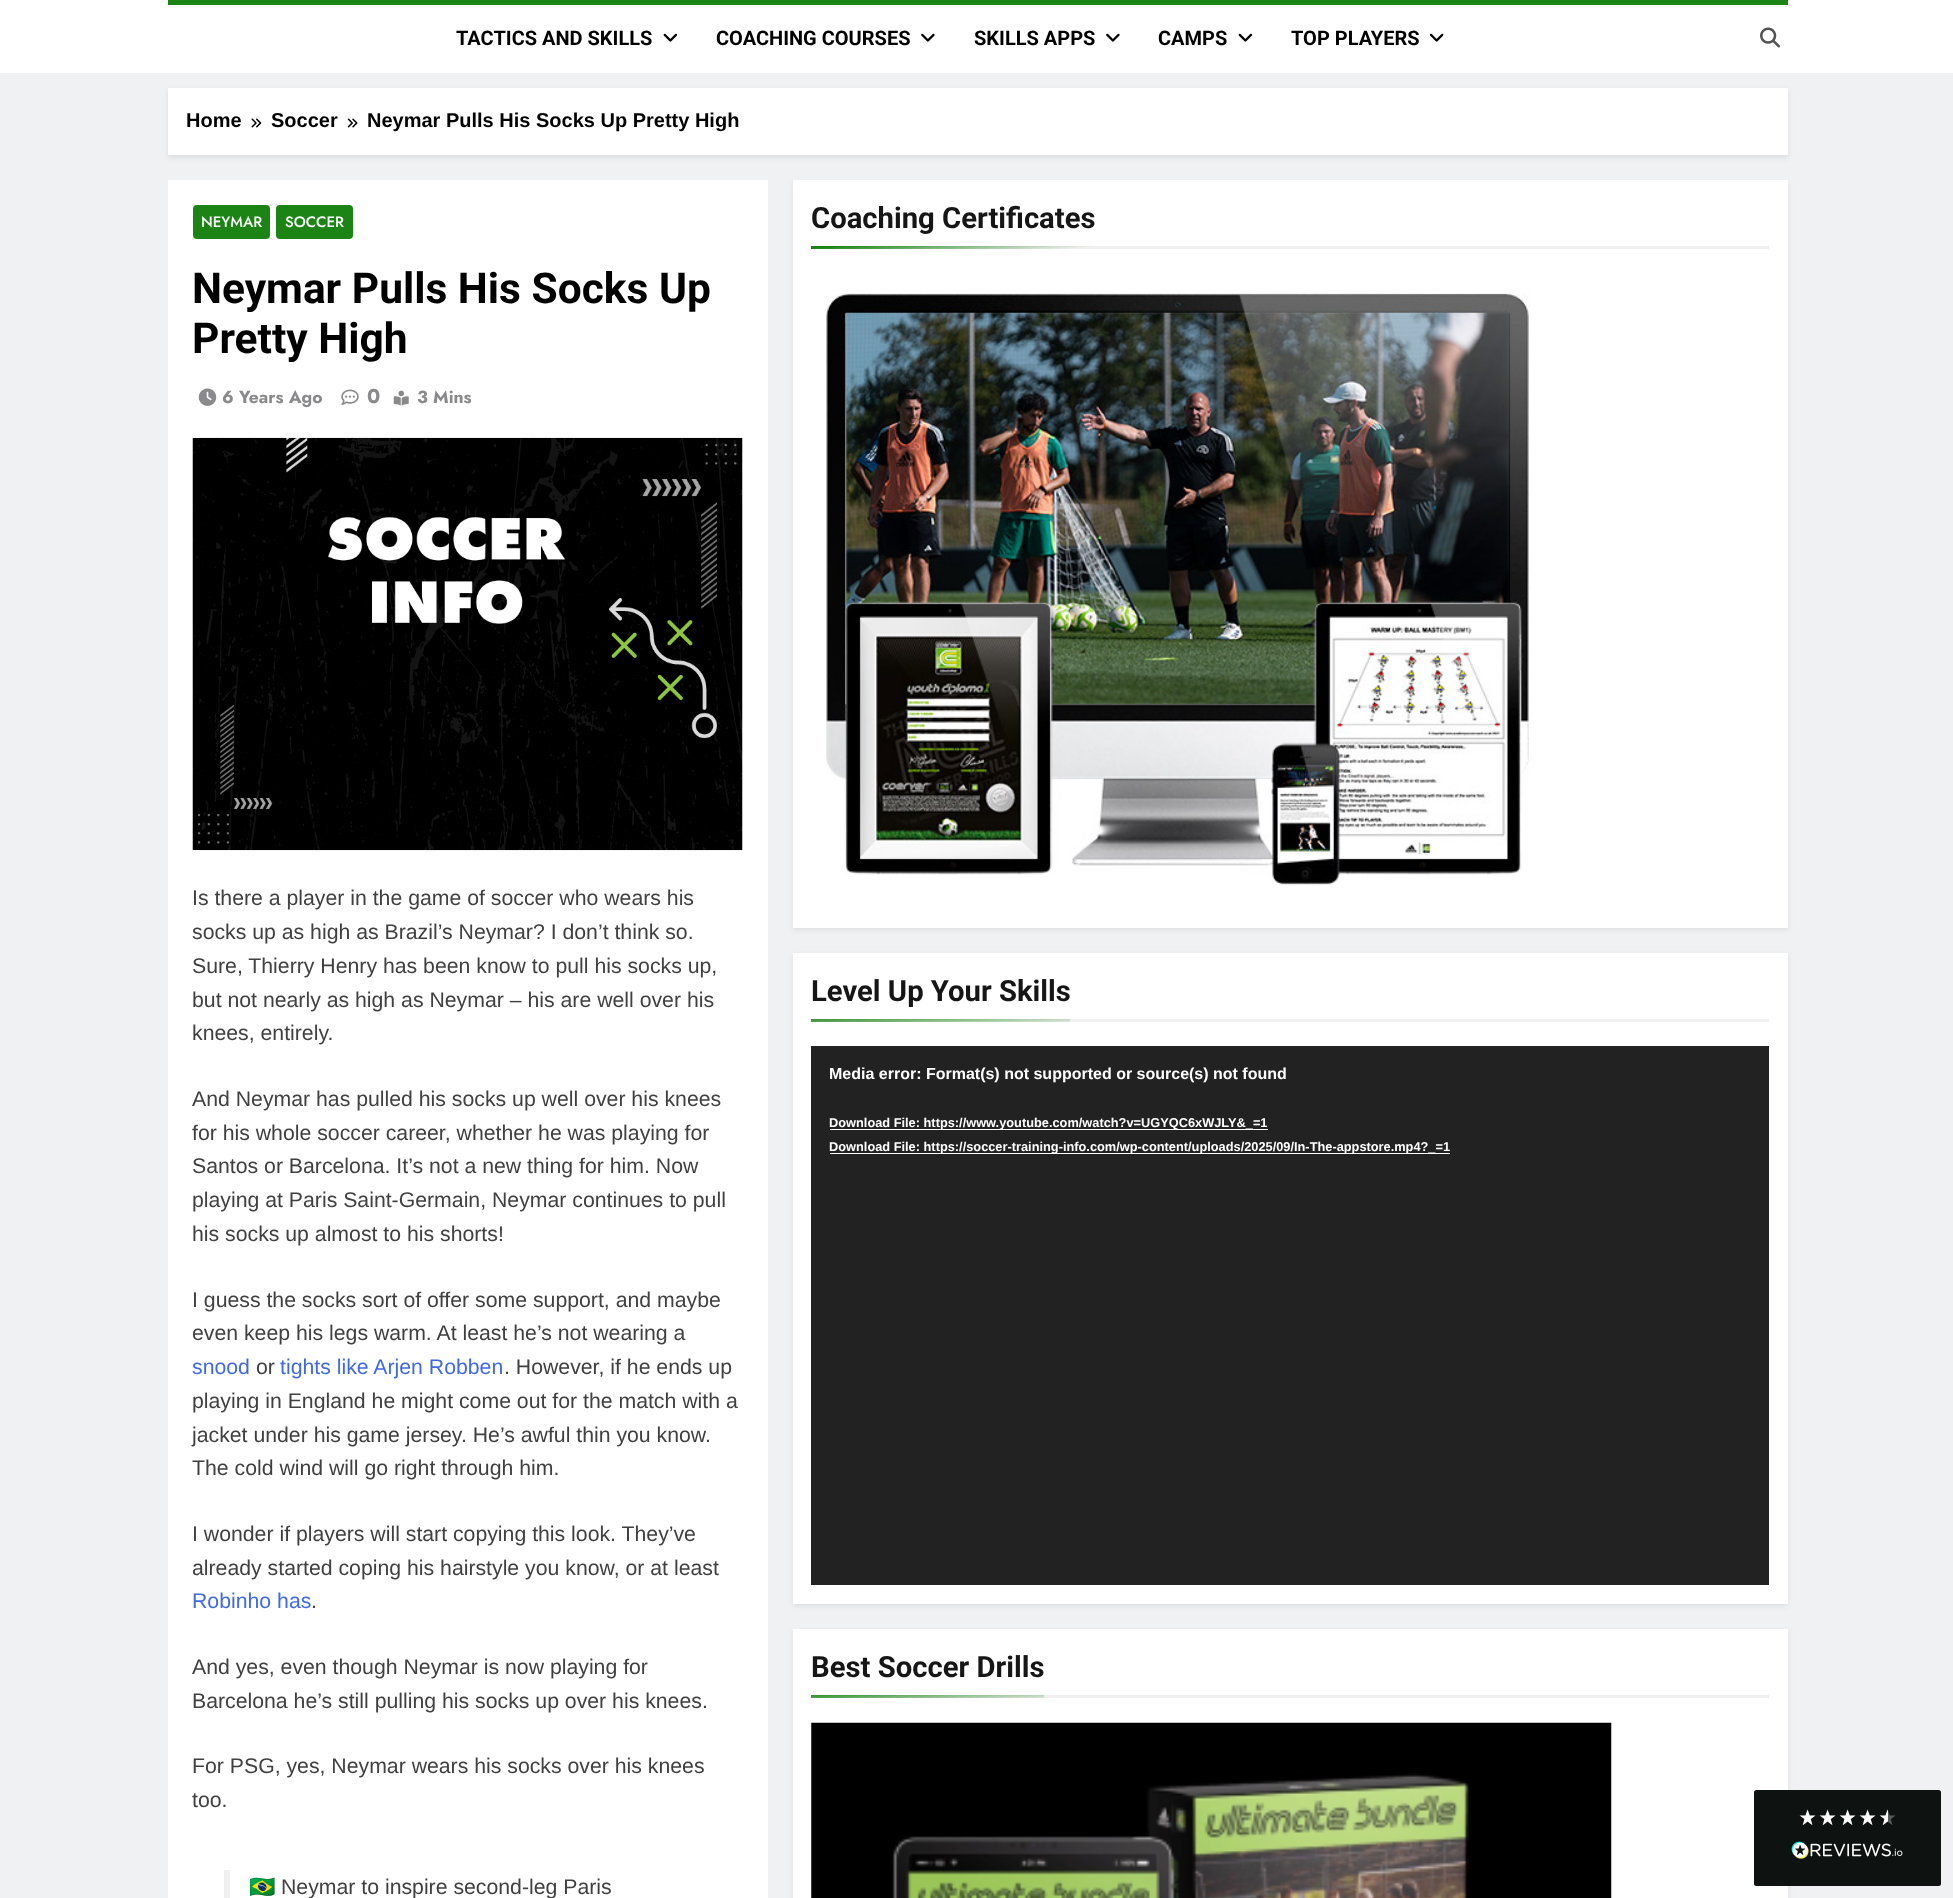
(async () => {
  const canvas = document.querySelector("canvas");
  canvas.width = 1953;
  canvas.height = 1898;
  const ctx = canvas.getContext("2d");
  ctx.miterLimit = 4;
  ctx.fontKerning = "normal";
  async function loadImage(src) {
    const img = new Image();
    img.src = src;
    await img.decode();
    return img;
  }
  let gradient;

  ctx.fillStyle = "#f0f1f2";
  ctx.fillRect(0, 0, 1953, 1898);
  ctx.fillStyle = "#ffffff";
  ctx.fillRect(0, 0, 1953, 73);
  ctx.fillStyle = "#1b8415";
  ctx.fillRect(168, 0, 1620, 5);
  ctx.drawImage(await loadImage("img/1.png"), 663, 33, 15, 9);
  ctx.drawImage(await loadImage("img/2.png"), 921, 33, 14, 9);
  ctx.drawImage(await loadImage("img/2.png"), 1106, 33, 14, 9);
  ctx.drawImage(await loadImage("img/1.png"), 1238, 33, 15, 9);
  ctx.drawImage(await loadImage("img/3.png"), 1429, 33, 15, 9);
  ctx.drawImage(await loadImage("img/4.png"), 1760, 27, 20, 21);
  ctx.fillStyle = "rgba(0, 0, 0, 0.08)";
  ctx.filter = "blur(2.5px)";
  ctx.beginPath();
  ctx.rect(168, 90, 1620, 68);
  ctx.fill();
  ctx.filter = "none";
  ctx.fillStyle = "#ffffff";
  ctx.fillRect(168, 88, 1620, 67);
  ctx.drawImage(await loadImage("img/5.png"), 251, 118, 11, 10);
  ctx.drawImage(await loadImage("img/6.png"), 347, 118, 11, 10);
  ctx.fillRect(168, 180, 600, 1718);
  ctx.fillStyle = "#1b8415";
  ctx.beginPath();
  ctx.roundRect(193, 205, 77, 34, 4);
  ctx.fill();
  ctx.beginPath();
  ctx.roundRect(276, 205, 77, 34, 4);
  ctx.fill();
  ctx.drawImage(await loadImage("img/7.png"), 198, 388, 19, 18);
  ctx.drawImage(await loadImage("img/8.png"), 341, 389, 18, 16);
  ctx.drawImage(await loadImage("img/9.png"), 393, 390, 16, 16);
  ctx.drawImage(await loadImage("img/10.png"), 192, 437, 551, 414);
  ctx.fillStyle = "#f0f0f0";
  ctx.fillRect(224, 1870, 6, 28);
  ctx.fillStyle = "rgba(0, 0, 0, 0.08)";
  ctx.filter = "blur(2.5px)";
  ctx.beginPath();
  ctx.rect(793, 183, 995, 747);
  ctx.fill();
  ctx.filter = "none";
  ctx.fillStyle = "#ffffff";
  ctx.fillRect(793, 180, 995, 748);
  ctx.fillStyle = "#f0f0f0";
  ctx.fillRect(1095, 246, 674, 3);
  gradient = ctx.createLinearGradient(952, 236, 954, 259);
  gradient.addColorStop(0, "#1b8415");
  gradient.addColorStop(1, "#f0f0f0");
  ctx.fillStyle = gradient;
  ctx.fillRect(811, 246, 284, 3);
  ctx.drawImage(await loadImage("img/11.png"), 826, 293, 704, 592);
  ctx.fillStyle = "rgba(0, 0, 0, 0.08)";
  ctx.filter = "blur(2.5px)";
  ctx.beginPath();
  ctx.rect(793, 955, 995, 651);
  ctx.fill();
  ctx.filter = "none";
  ctx.fillStyle = "#ffffff";
  ctx.fillRect(793, 953, 995, 651);
  ctx.fillStyle = "#f0f0f0";
  ctx.fillRect(1070, 1019, 699, 3);
  gradient = ctx.createLinearGradient(940, 1010, 941, 1030);
  gradient.addColorStop(0, "#1b8415");
  gradient.addColorStop(1, "#f0f0f0");
  ctx.fillStyle = gradient;
  ctx.fillRect(811, 1019, 259, 3);
  for (const [x, y, w, h, color] of [
    [811, 1046, 958, 539, "#222222"],
    [830, 1129, 438, 1, "#ffffff"],
    [830, 1153, 620, 1, "#ffffff"],
  ]) {
    ctx.fillStyle = color;
    ctx.fillRect(x, y, w, h);
  }
  ctx.fillStyle = "rgba(0, 0, 0, 0.08)";
  ctx.filter = "blur(2.5px)";
  ctx.beginPath();
  ctx.rect(793, 1631, 995, 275);
  ctx.fill();
  ctx.filter = "none";
  ctx.fillStyle = "#ffffff";
  ctx.fillRect(793, 1629, 995, 269);
  ctx.fillStyle = "#f0f0f0";
  ctx.fillRect(1044, 1695, 725, 3);
  gradient = ctx.createLinearGradient(927, 1687, 928, 1706);
  gradient.addColorStop(0, "#1b8415");
  gradient.addColorStop(1, "#f0f0f0");
  ctx.fillStyle = gradient;
  ctx.fillRect(811, 1695, 233, 3);
  ctx.drawImage(await loadImage("img/12.png"), 811, 1722, 801, 176);
  ctx.fillStyle = "#0e1311";
  ctx.beginPath();
  ctx.roundRect(1754, 1790, 187, 96, 2.5);
  ctx.fill();
  ctx.drawImage(await loadImage("img/13.png"), 1799, 1809, 17, 17);
  ctx.drawImage(await loadImage("img/13.png"), 1819, 1809, 17, 17);
  ctx.drawImage(await loadImage("img/13.png"), 1839, 1809, 17, 17);
  ctx.drawImage(await loadImage("img/13.png"), 1859, 1809, 17, 17);
  ctx.drawImage(await loadImage("img/14.png"), 1879, 1809, 17, 17);
  ctx.drawImage(await loadImage("img/15.png"), 1791, 1841, 112, 18);
  ctx.font = "bold 20px Roboto";
  ctx.fillStyle = "#000000";
  for (const [text, x, y] of [
    ["TACTICS AND SKILLS", 456, 45],
    ["COACHING COURSES", 716, 45],
    ["SKILLS APPS", 974, 45],
    ["CAMPS", 1158, 45],
    ["TOP PLAYERS", 1291, 45],
  ]) {
    ctx.fillText(text, x, y);
  }
  ctx.font = "bold 20px Liberation Sans";
  for (const [text, x, y] of [
    ["Home", 186, 127],
    ["Soccer", 271, 127],
    ["Neymar Pulls His Socks Up Pretty High", 367, 127],
  ]) {
    ctx.fillText(text, x, y);
  }
  ctx.font = "500 15px Jost";
  ctx.fillStyle = "#ffffff";
  ctx.fillText("NEYMAR", 201, 227);
  ctx.fillText("SOCCER", 285, 227);
  ctx.font = "bold 42.5px Roboto";
  ctx.fillStyle = "#000000";
  ctx.fillText("Neymar Pulls His Socks Up", 192, 303);
  ctx.fillText("Pretty High", 192, 353);
  ctx.font = "bold 17.5px Jost";
  ctx.fillStyle = "#8a8a8c";
  ctx.fillText("6 Years Ago", 222, 403);
  ctx.font = "bold 20px Jost";
  ctx.fillText("0", 367, 403);
  ctx.font = "bold 17.5px Jost";
  ctx.fillText("3 Mins", 417, 403);
  ctx.font = "21.25px Liberation Sans";
  ctx.fillStyle = "#404040";
  for (const [text, x, y] of [
    ["Is there a player in the game of soccer who wears his", 192, 905],
    ["socks up as high as Brazil’s Neymar? I don’t think so.", 192, 939],
    ["Sure, Thierry Henry has been know to pull his socks up,", 192, 973],
    ["but not nearly as high as Neymar – his are well over his", 192, 1007],
    ["knees, entirely.", 192, 1040],
    ["And Neymar has pulled his socks up well over his knees", 192, 1106],
    ["for his whole soccer career, whether he was playing for", 192, 1140],
    ["Santos or Barcelona. It’s not a new thing for him. Now", 192, 1173],
    ["playing at Paris Saint-Germain, Neymar continues to pull", 192, 1207],
    ["his socks up almost to his shorts!", 192, 1241],
    ["I guess the socks sort of offer some support, and maybe", 192, 1307],
    ["even keep his legs warm. At least he’s not wearing a", 192, 1340],
  ]) {
    ctx.fillText(text, x, y);
  }
  ctx.fillStyle = "#4169e1";
  ctx.fillText("snood", 192, 1374);
  ctx.fillStyle = "#404040";
  ctx.fillText("or", 256, 1374);
  ctx.fillStyle = "#4169e1";
  ctx.fillText("tights like Arjen Robben", 280, 1374);
  ctx.fillStyle = "#404040";
  for (const [text, x, y] of [
    [". However, if he ends up", 504, 1374],
    ["playing in England he might come out for the match with a", 192, 1408],
    ["jacket under his game jersey. He’s awful thin you know.", 192, 1442],
    ["The cold wind will go right through him.", 192, 1475],
    ["I wonder if players will start copying this look. They’ve", 192, 1541],
    ["already started coping his hairstyle you know, or at least", 192, 1575],
  ]) {
    ctx.fillText(text, x, y);
  }
  ctx.fillStyle = "#4169e1";
  ctx.fillText("Robinho has", 192, 1608);
  ctx.fillStyle = "#404040";
  for (const [text, x, y] of [
    [".", 311, 1608],
    ["And yes, even though Neymar is now playing for", 192, 1674],
    ["Barcelona he’s still pulling his socks up over his knees.", 192, 1708],
    ["For PSG, yes, Neymar wears his socks over his knees", 192, 1773],
    ["too.", 192, 1807],
  ]) {
    ctx.fillText(text, x, y);
  }
  ctx.font = "21.25px Noto Color Emoji";
  ctx.fillText("🇧🇷", 249, 1894);
  ctx.font = "21.25px Liberation Sans";
  ctx.fillText("Neymar to inspire second-leg Paris", 281, 1894);
  ctx.font = "bold 29.25px Roboto";
  ctx.fillStyle = "#161616";
  ctx.fillText("Coaching Certificates", 811, 228);
  ctx.fillText("Level Up Your Skills", 811, 1001);
  ctx.font = "bold 16px Liberation Sans";
  ctx.fillStyle = "#ffffff";
  ctx.fillText("Media error: Format(s) not supported or source(s) not found", 829, 1079);
  ctx.font = "bold 12.8px Liberation Sans";
  ctx.fillText("Download File: https://www.youtube.com/watch?v=UGYQC6xWJLY&_=1", 829, 1127);
  ctx.fillText("Download File: https://soccer-training-info.com/wp-content/uploads/2025/09/In-The-appstore.mp4?_=1", 829, 1151);
  ctx.font = "bold 29.25px Roboto";
  ctx.fillStyle = "#161616";
  ctx.fillText("Best Soccer Drills", 811, 1677);
})();
